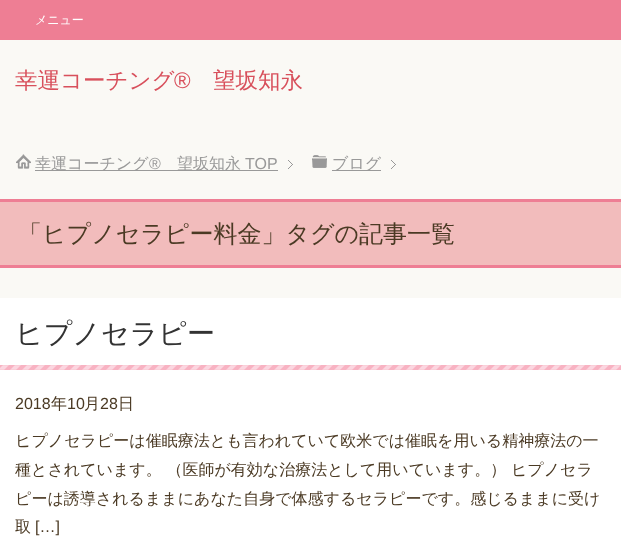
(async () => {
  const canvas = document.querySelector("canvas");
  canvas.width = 621;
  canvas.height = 536;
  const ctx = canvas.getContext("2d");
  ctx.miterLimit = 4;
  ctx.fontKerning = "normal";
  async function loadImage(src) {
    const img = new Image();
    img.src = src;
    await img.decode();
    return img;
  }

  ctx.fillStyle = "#faf9f5";
  ctx.fillRect(0, 0, 621, 536);
  ctx.fillStyle = "#ee7e94";
  ctx.fillRect(0, 0, 621, 40);
  ctx.drawImage(await loadImage("img/1.png"), 288, 160, 5, 9);
  ctx.drawImage(await loadImage("img/2.png"), 16, 154, 15, 15);
  ctx.fillStyle = "#999999";
  ctx.fillRect(35, 170, 243, 1);
  ctx.drawImage(await loadImage("img/1.png"), 391, 160, 5, 9);
  ctx.drawImage(await loadImage("img/3.png"), 312, 155, 15, 13);
  for (const [x, y, w, h, color] of [
    [332, 170, 49, 1, "#999999"],
    [0, 202, 621, 63, "#f2bcbc"],
    [0, 199, 621, 3, "#ee7e94"],
    [0, 265, 621, 3, "#ee7e94"],
    [0, 298, 621, 238, "#ffffff"],
  ]) {
    ctx.fillStyle = color;
    ctx.fillRect(x, y, w, h);
  }
  ctx.drawImage(await loadImage("img/4.png"), 0, 365, 621, 5);
  ctx.font = "500 12px WenQuanYi Zen Hei";
  ctx.fillText("メニュー", 35, 24);
  ctx.font = "500 22.5px WenQuanYi Zen Hei";
  ctx.fillStyle = "#d8505c";
  ctx.fillText("幸運コーチング", 15, 88);
  ctx.font = "22.5px Liberation Sans";
  ctx.fillText("®︎", 174, 88);
  ctx.font = "500 22.5px WenQuanYi Zen Hei";
  ctx.fillText("望坂知永", 213, 88);
  ctx.font = "500 16px WenQuanYi Zen Hei";
  ctx.fillStyle = "#999999";
  ctx.fillText("幸運コーチング", 35, 169);
  ctx.font = "16px Liberation Sans";
  ctx.fillText("®︎", 149, 169);
  ctx.font = "500 16px WenQuanYi Zen Hei";
  ctx.fillText("望坂知永", 177, 169);
  ctx.font = "16px Liberation Sans";
  ctx.fillText("TOP", 245, 169);
  ctx.font = "500 16px WenQuanYi Zen Hei";
  ctx.fillText("ブログ", 332, 169);
  ctx.font = "500 24px WenQuanYi Zen Hei";
  ctx.fillStyle = "#4b3a24";
  ctx.fillText("「ヒプノセラピー料金」タグの記事一覧", 18, 242);
  ctx.font = "500 28px WenQuanYi Zen Hei";
  ctx.fillStyle = "#333333";
  ctx.fillText("ヒプノセラピー", 15, 343);
  ctx.font = "16px Liberation Sans";
  ctx.fillStyle = "#4b3a24";
  ctx.fillText("2018", 15, 409);
  ctx.font = "500 16px WenQuanYi Zen Hei";
  ctx.fillText("年", 51, 409);
  ctx.font = "16px Liberation Sans";
  ctx.fillText("10", 67, 409);
  ctx.font = "500 16px WenQuanYi Zen Hei";
  ctx.fillText("月", 84, 409);
  ctx.font = "16px Liberation Sans";
  ctx.fillText("28", 100, 409);
  ctx.font = "500 16px WenQuanYi Zen Hei";
  for (const [text, x, y] of [
    ["日", 118, 409],
    ["ヒプノセラピーは催眠療法とも言われていて欧米では催眠を用いる精神療法の一", 15, 446],
    ["種とされています。 （医師が有効な治療法として用いています。） ヒプノセラ", 15, 475],
    ["ピーは誘導されるままにあなた自身で体感するセラピーです。感じるままに受け", 15, 504],
    ["取", 15, 532],
  ]) {
    ctx.fillText(text, x, y);
  }
  ctx.font = "16px Liberation Sans";
  ctx.fillText("[…]", 35, 532);
})();
